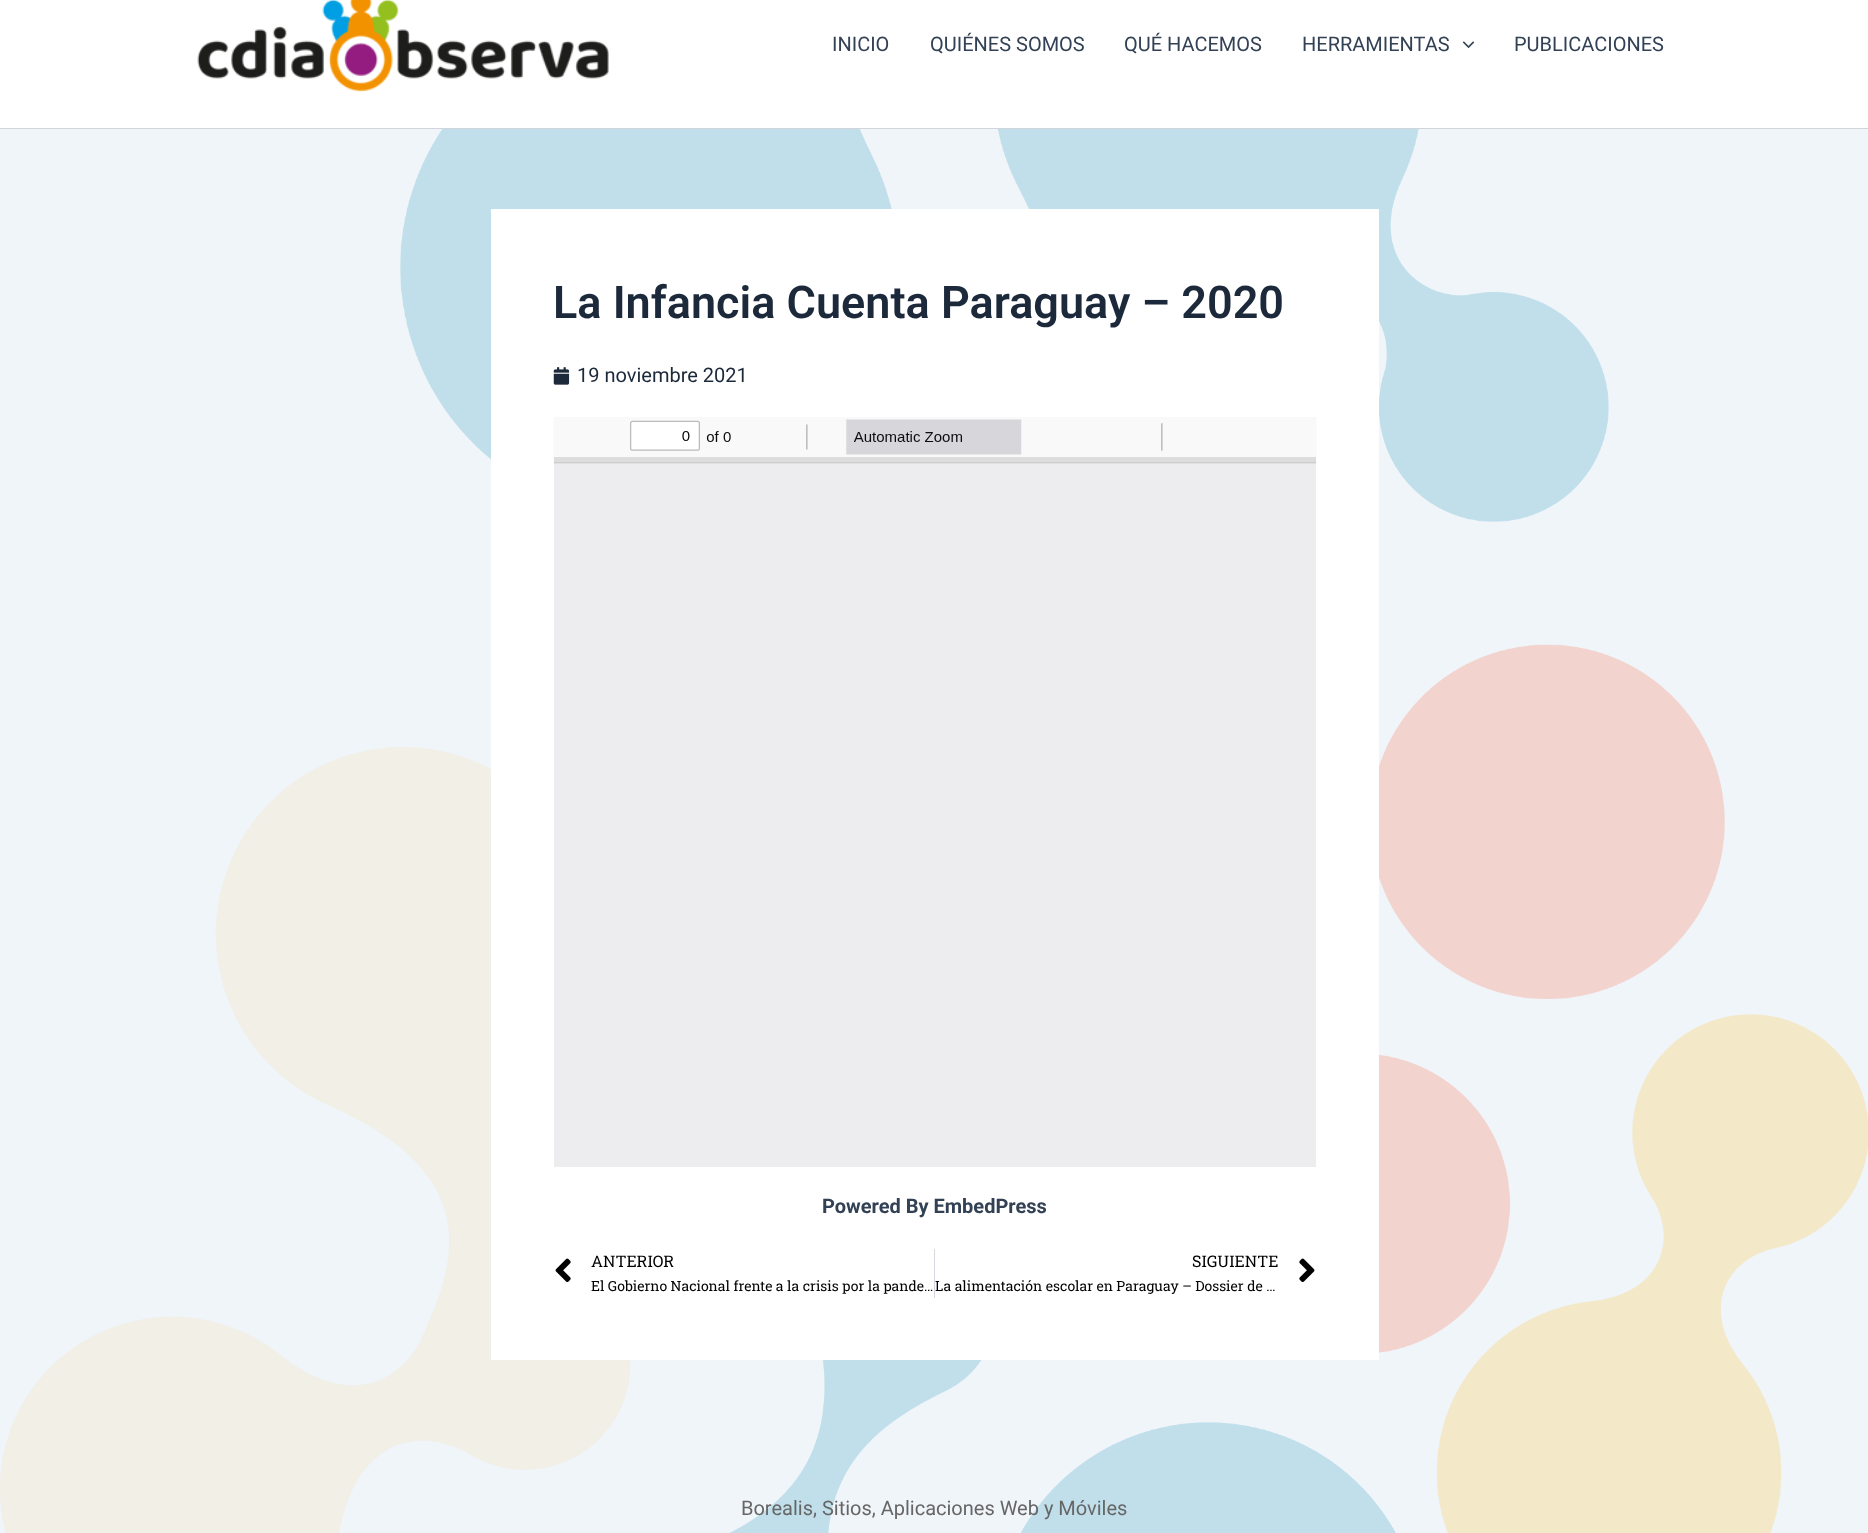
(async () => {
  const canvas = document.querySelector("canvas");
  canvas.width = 1868;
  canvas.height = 1533;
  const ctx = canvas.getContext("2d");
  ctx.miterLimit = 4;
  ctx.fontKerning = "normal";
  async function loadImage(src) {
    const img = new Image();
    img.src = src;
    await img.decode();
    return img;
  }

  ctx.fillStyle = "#f0f5fa";
  ctx.fillRect(0, 0, 1868, 1533);
  ctx.drawImage(await loadImage("img/1.png"), 0, 129, 1868, 1404);
  ctx.fillStyle = "#ffffff";
  ctx.fillRect(0, 0, 1868, 128);
  ctx.fillStyle = "#d1d5db";
  ctx.fillRect(0, 128, 1868, 1);
  ctx.drawImage(await loadImage("img/2.png"), 197, 0, 412, 92);
  ctx.drawImage(await loadImage("img/3.png"), 1463, 41, 12, 8);
  ctx.fillStyle = "#ffffff";
  ctx.fillRect(491, 209, 888, 1151);
  ctx.drawImage(await loadImage("img/4.png"), 553, 367, 17, 18);
  ctx.drawImage(await loadImage("img/5.png"), 553, 417, 764, 750);
  ctx.drawImage(await loadImage("img/6.png"), 555, 1258, 16, 24);
  ctx.fillStyle = "#d5d8dc";
  ctx.fillRect(934, 1249, 1, 49);
  ctx.drawImage(await loadImage("img/7.png"), 1299, 1258, 16, 24);
  ctx.font = "20px Roboto";
  ctx.fillStyle = "#334155";
  for (const [text, x, y] of [
    ["INICIO", 832, 51],
    ["QUIÉNES SOMOS", 930, 51],
    ["QUÉ HACEMOS", 1124, 51],
    ["HERRAMIENTAS", 1302, 51],
    ["PUBLICACIONES", 1514, 51],
  ]) {
    ctx.fillText(text, x, y);
  }
  ctx.font = "600 45px Roboto";
  ctx.fillStyle = "#1c293a";
  ctx.fillText("La Infancia Cuenta Paraguay – 2020", 553, 318);
  ctx.font = "20px Roboto";
  ctx.fillText("19 noviembre 2021", 577, 382);
  ctx.font = "bold 20px Roboto";
  ctx.fillStyle = "#334155";
  ctx.fillText("Powered By EmbedPress", 822, 1213);
  ctx.font = "16px Roboto Slab";
  ctx.fillStyle = "#000000";
  ctx.fillText("ANTERIOR", 591, 1267);
  ctx.font = "14px Roboto Slab";
  ctx.fillText("El Gobierno Nacional frente a la crisis por la pande…", 591, 1291);
  ctx.font = "16px Roboto Slab";
  ctx.fillText("SIGUIENTE", 1192, 1267);
  ctx.font = "14px Roboto Slab";
  ctx.fillText("La alimentación escolar en Paraguay – Dossier de …", 935, 1291);
  ctx.font = "20px Roboto";
  ctx.fillStyle = "#666666";
  ctx.fillText("Borealis, Sitios, Aplicaciones Web y Móviles", 741, 1515);
})();
